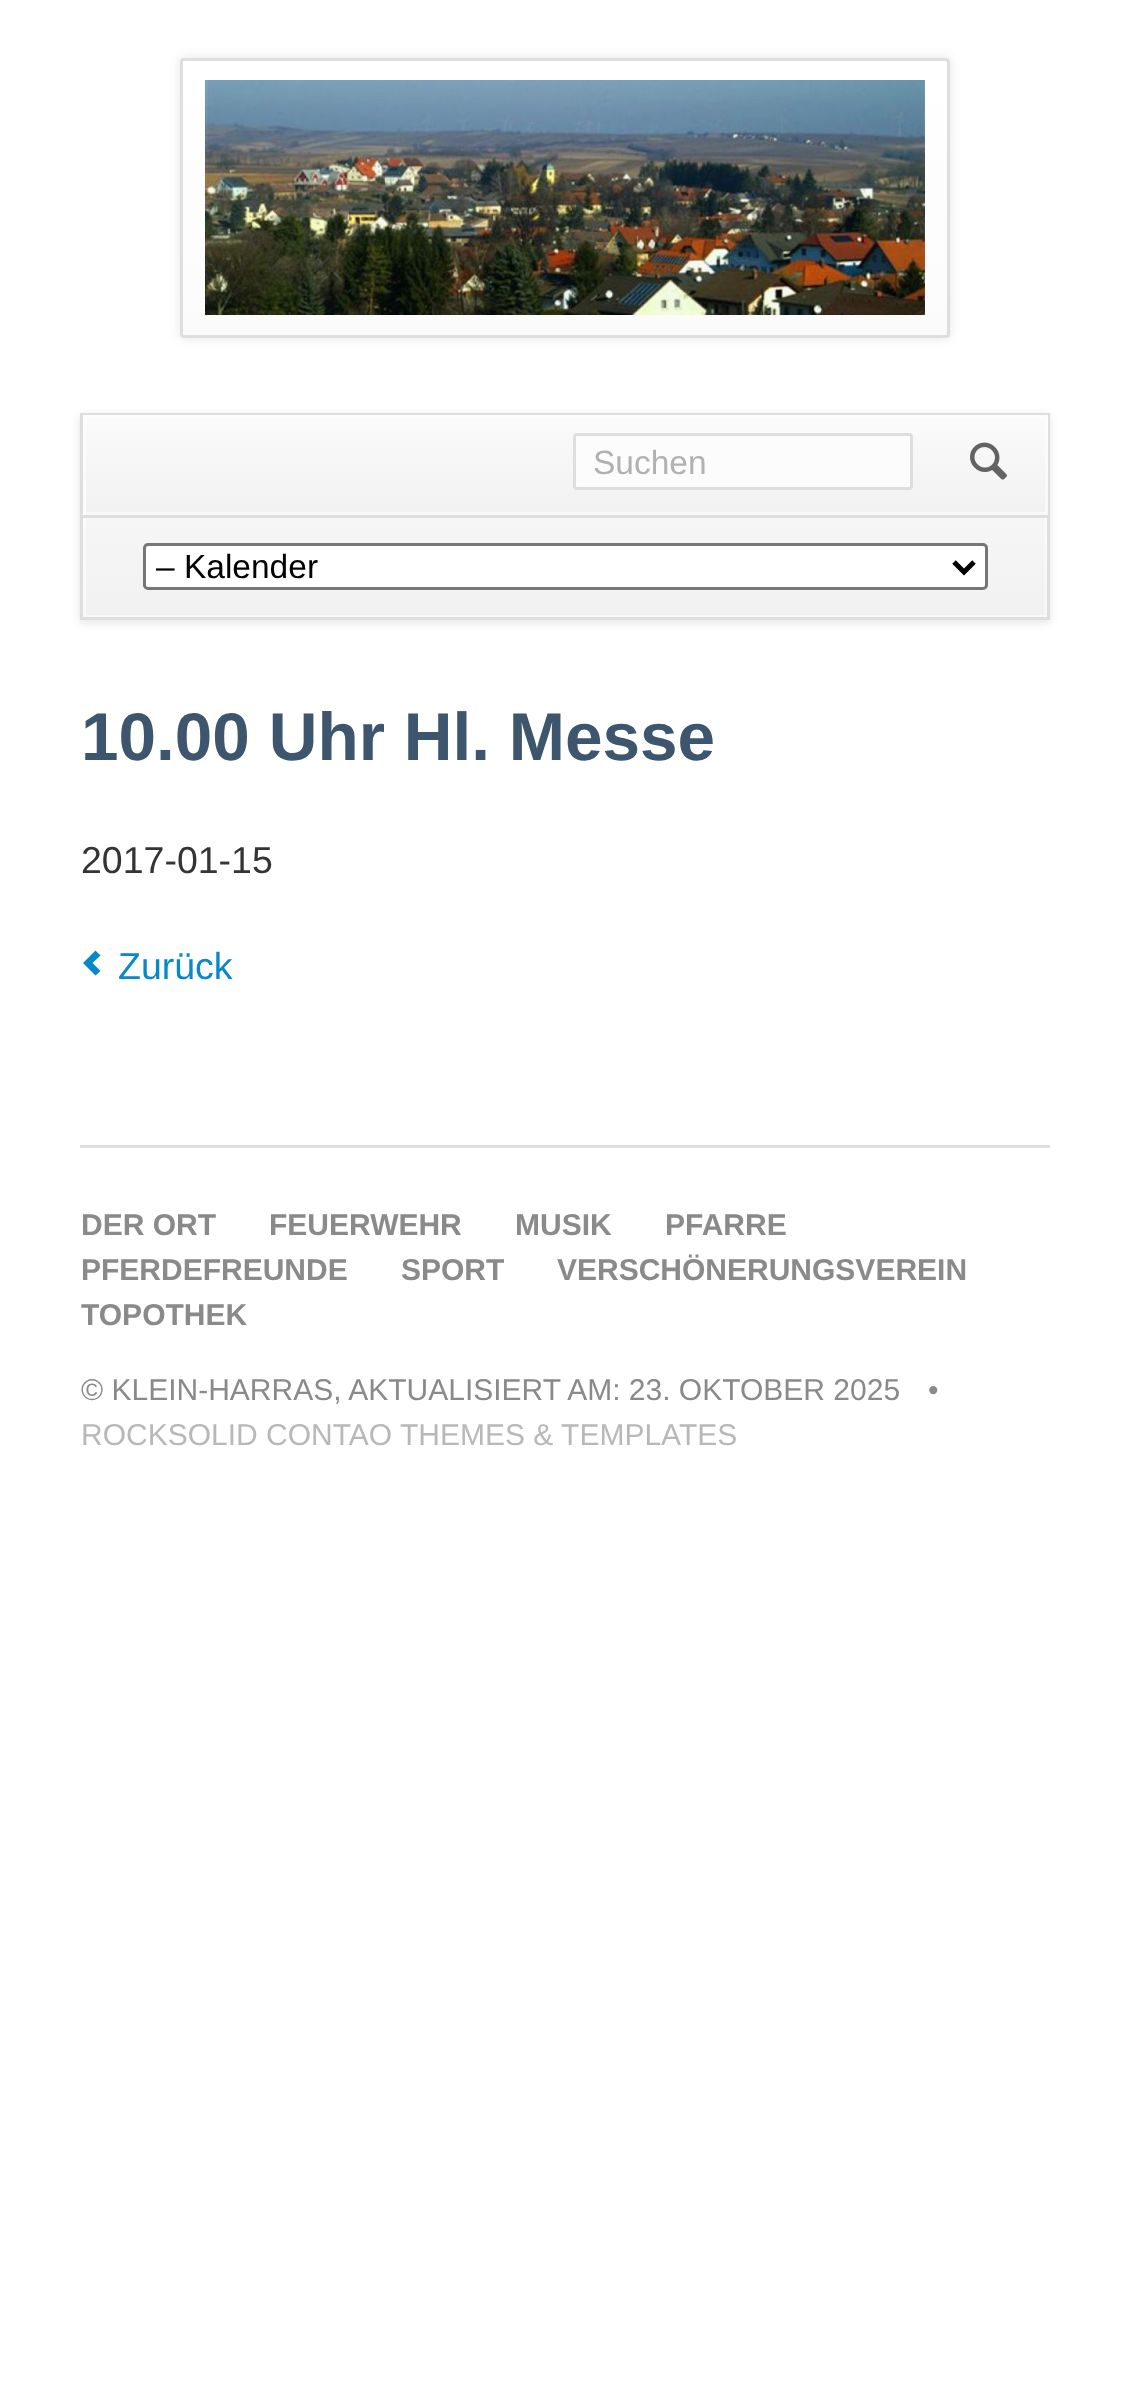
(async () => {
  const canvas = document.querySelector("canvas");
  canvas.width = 1129;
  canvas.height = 2392;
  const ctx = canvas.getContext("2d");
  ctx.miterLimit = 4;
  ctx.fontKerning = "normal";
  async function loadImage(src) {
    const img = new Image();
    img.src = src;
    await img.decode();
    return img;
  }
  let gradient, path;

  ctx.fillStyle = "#ffffff";
  ctx.fillRect(0, 0, 1129, 2392);
  ctx.fillStyle = "rgba(0, 0, 0, 0.1)";
  ctx.filter = "blur(6px)";
  ctx.beginPath();
  ctx.roundRect(180, 58, 770, 280, 4);
  ctx.fill();
  ctx.filter = "none";
  gradient = ctx.createLinearGradient(565, 60, 565, 335);
  gradient.addColorStop(0, "#ffffff");
  gradient.addColorStop(1, "#fbfbfb");
  ctx.fillStyle = gradient;
  ctx.fillRect(180, 60, 770, 275);
  ctx.beginPath();
  ctx.roundRect(181.5, 59.5, 767, 277, 2.5);
  ctx.strokeStyle = "#dedede";
  ctx.lineWidth = 3;
  ctx.stroke();
  ctx.drawImage(await loadImage("img/1.png"), 205, 80, 720, 235);
  ctx.fillStyle = "rgba(0, 0, 0, 0.1)";
  ctx.filter = "blur(4px)";
  ctx.beginPath();
  ctx.rect(80, 415, 970, 208);
  ctx.fill();
  ctx.filter = "none";
  gradient = ctx.createLinearGradient(565, 415, 565, 618);
  gradient.addColorStop(0, "#fbfbfb");
  gradient.addColorStop(1, "#f1f1f1");
  ctx.fillStyle = gradient;
  ctx.fillRect(83, 518, 964, 99);
  ctx.strokeStyle = "rgba(255, 255, 255, 0.5)";
  ctx.strokeRect(84.5, 416.5, 962, 200);
  ctx.strokeStyle = "#dedede";
  ctx.strokeRect(81.5, 414.5, 967, 204);
  gradient = ctx.createLinearGradient(565, 415, 565, 515);
  gradient.addColorStop(0, "#fbfbfb");
  gradient.addColorStop(1, "#f1f1f1");
  ctx.fillStyle = gradient;
  ctx.fillRect(83, 415, 965, 100);
  ctx.strokeStyle = "rgba(255, 255, 255, 0.5)";
  ctx.strokeRect(84.5, 416.5, 962, 97);
  ctx.fillStyle = "rgba(255, 255, 255, 0.5)";
  ctx.fillRect(83, 480, 3, 35);
  ctx.fillStyle = "#dedede";
  ctx.fillRect(83, 515, 965, 3);
  ctx.fillStyle = "#fcfcfc";
  ctx.beginPath();
  ctx.roundRect(574.5, 434.5, 337, 54, 2.5);
  ctx.fill();
  ctx.strokeStyle = "#dedede";
  ctx.stroke();
  ctx.drawImage(await loadImage("img/2.png"), 970, 442, 37, 38);
  ctx.fillStyle = "#ffffff";
  ctx.beginPath();
  ctx.roundRect(144.5, 544.5, 842, 44, 3.5);
  ctx.fill();
  ctx.strokeStyle = "#767676";
  ctx.stroke();
  path = new Path2D("M954 562L964 572L974 562");
  ctx.strokeStyle = "#000000";
  ctx.lineWidth = 5;
  ctx.stroke(path);
  ctx.fillStyle = "#0788ca";
  path = new Path2D("M95.5 975.5L100.5 971L92.5 963L100.5 955.5L95.5 950.5L83 963Z");
  ctx.fill(path);
  ctx.fillStyle = "#dedede";
  ctx.fillRect(80, 1145, 970, 3);
  ctx.font = "33.5px Liberation Sans";
  ctx.fillStyle = "#b1b1b1";
  ctx.fillText("Suchen", 593, 474);
  ctx.fillStyle = "#000000";
  ctx.fillText("– Kalender", 156, 578);
  ctx.font = "bold 67.5px Liberation Sans";
  ctx.fillStyle = "#3d566e";
  ctx.fillText("10.00 Uhr Hl. Messe", 81, 760);
  ctx.font = "37.5px Liberation Sans";
  ctx.fillStyle = "#343434";
  ctx.fillText("2017-01-15", 81, 873);
  ctx.fillStyle = "#0788ca";
  ctx.fillText("Zurück", 118, 979);
  ctx.font = "bold 30px Liberation Sans";
  ctx.fillStyle = "#8a8a8a";
  for (const [text, x, y] of [
    ["DER ORT", 81, 1235],
    ["FEUERWEHR", 269, 1235],
    ["MUSIK", 515, 1235],
    ["PFARRE", 665, 1235],
    ["PFERDEFREUNDE", 81, 1280],
    ["SPORT", 401, 1280],
    ["VERSCHÖNERUNGSVEREIN", 557, 1280],
    ["TOPOTHEK", 81, 1325],
  ]) {
    ctx.fillText(text, x, y);
  }
  ctx.font = "30px Liberation Sans";
  ctx.fillText("© KLEIN-HARRAS, AKTUALISIERT AM: 23. OKTOBER 2025", 81, 1400);
  ctx.fillText("•", 928, 1400);
  ctx.fillStyle = "#b8b8b8";
  ctx.fillText("ROCKSOLID CONTAO THEMES & TEMPLATES", 81, 1445);
})();
